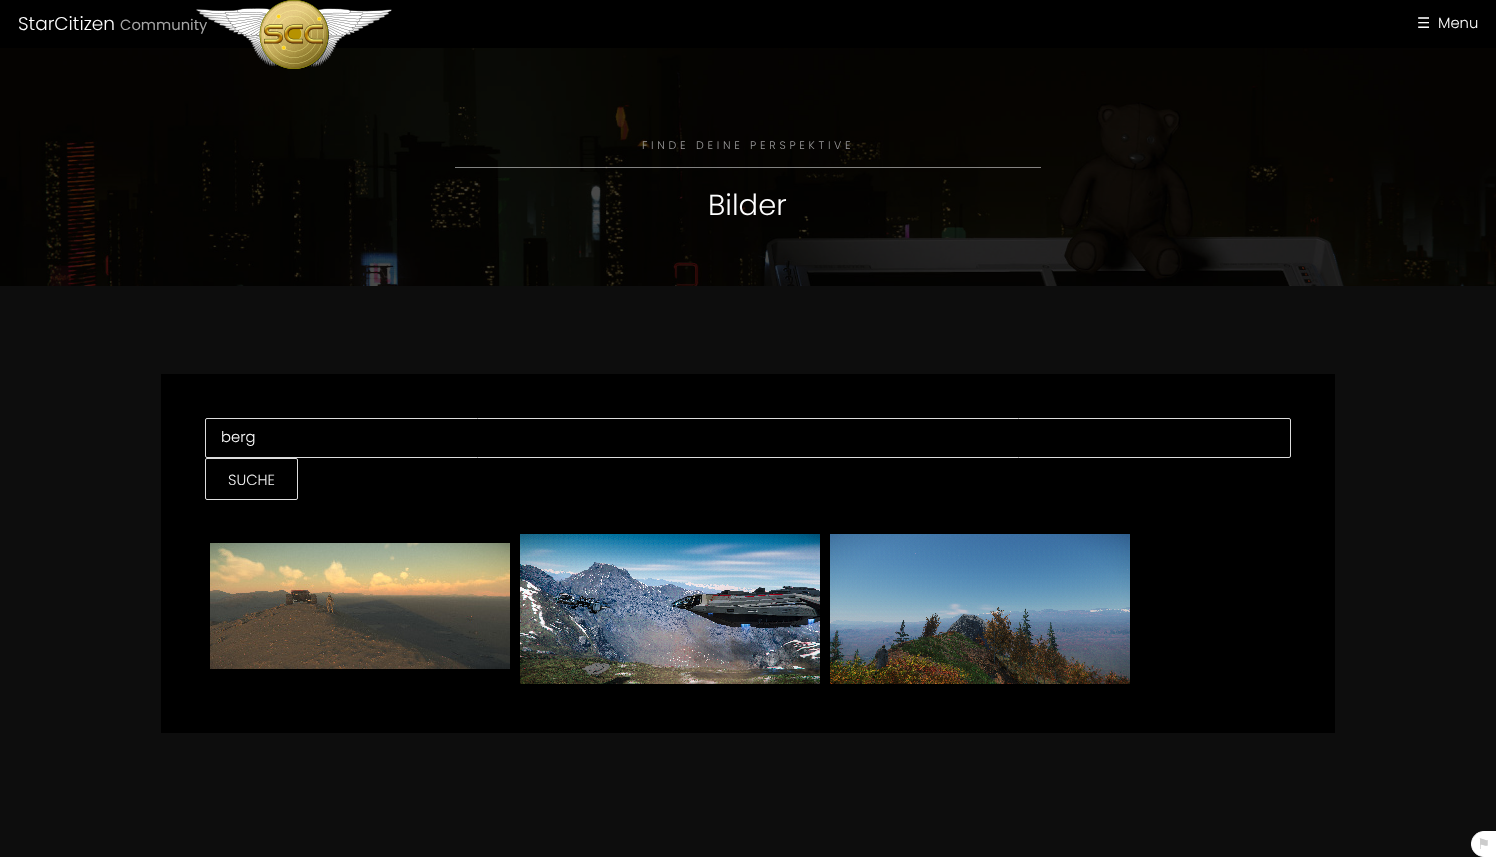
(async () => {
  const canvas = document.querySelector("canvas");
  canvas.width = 1496;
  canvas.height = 857;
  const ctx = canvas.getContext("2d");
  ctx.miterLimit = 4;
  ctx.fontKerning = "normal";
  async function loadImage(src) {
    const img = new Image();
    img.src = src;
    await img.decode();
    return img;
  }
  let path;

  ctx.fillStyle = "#000000";
  ctx.fillRect(0, 0, 1496, 857);
  ctx.drawImage(await loadImage("img/2.png"), 0, 48, 1496, 238);
  for (const [x, y, w, h, color] of [
    [455, 167, 586, 1, "rgba(255, 255, 255, 0.5)"],
    [0, 286, 1496, 571, "#0d0d0d"],
    [161, 374, 1174, 359, "#000000"],
  ]) {
    ctx.fillStyle = color;
    ctx.fillRect(x, y, w, h);
  }
  ctx.beginPath();
  ctx.roundRect(205.5, 418.5, 1085, 39, 1.5);
  ctx.strokeStyle = "#dddddd";
  ctx.stroke();
  ctx.beginPath();
  ctx.roundRect(205.5, 458.5, 92, 41, 1.5);
  ctx.stroke();
  ctx.drawImage(await loadImage("img/3.png"), 210, 543, 300, 126);
  ctx.drawImage(await loadImage("img/4.png"), 520, 534, 300, 150);
  ctx.drawImage(await loadImage("img/5.png"), 830, 534, 300, 150);
  ctx.fillStyle = "#ffffff";
  path = new Path2D("M1484 831.5H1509.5V856.5H1484C1477 856.5 1471.5 851 1471.5 844C1471.5 837 1477 831.5 1484 831.5Z");
  ctx.fill(path);
  ctx.strokeStyle = "#ffffff";
  ctx.stroke(path);
  ctx.font = "300 18.5px Poppins";
  ctx.fillText("StarCitizen", 18, 30);
  ctx.font = "14.75px Poppins";
  ctx.fillStyle = "#a6a6a6";
  ctx.fillText("Community", 120, 30);
  ctx.drawImage(await loadImage("img/1.png"), 196, 0, 196, 69);
  ctx.font = "14.75px DejaVu Sans";
  ctx.fillStyle = "#ffffff";
  ctx.fillText("☰", 1417, 28);
  ctx.font = "300 14.75px Poppins";
  ctx.fillText("Menu", 1438, 28);
  ctx.letterSpacing = "3.7px";
  ctx.font = "300 11px Poppins";
  ctx.fillStyle = "#999999";
  ctx.fillText("FINDE DEINE PERSPEKTIVE", 642, 149);
  ctx.letterSpacing = "0px";
  ctx.font = "300 29px Poppins";
  ctx.fillStyle = "#ffffff";
  ctx.fillText("Bilder", 708, 215);
  ctx.font = "300 14.75px Poppins";
  ctx.fillText("berg", 221, 442);
  ctx.fillStyle = "#f2f2f2";
  ctx.fillText("SUCHE", 228, 485);
  ctx.font = "14.75px DejaVu Sans";
  ctx.fillStyle = "#cccccc";
  ctx.fillText("⚑", 1477, 849);
})();
